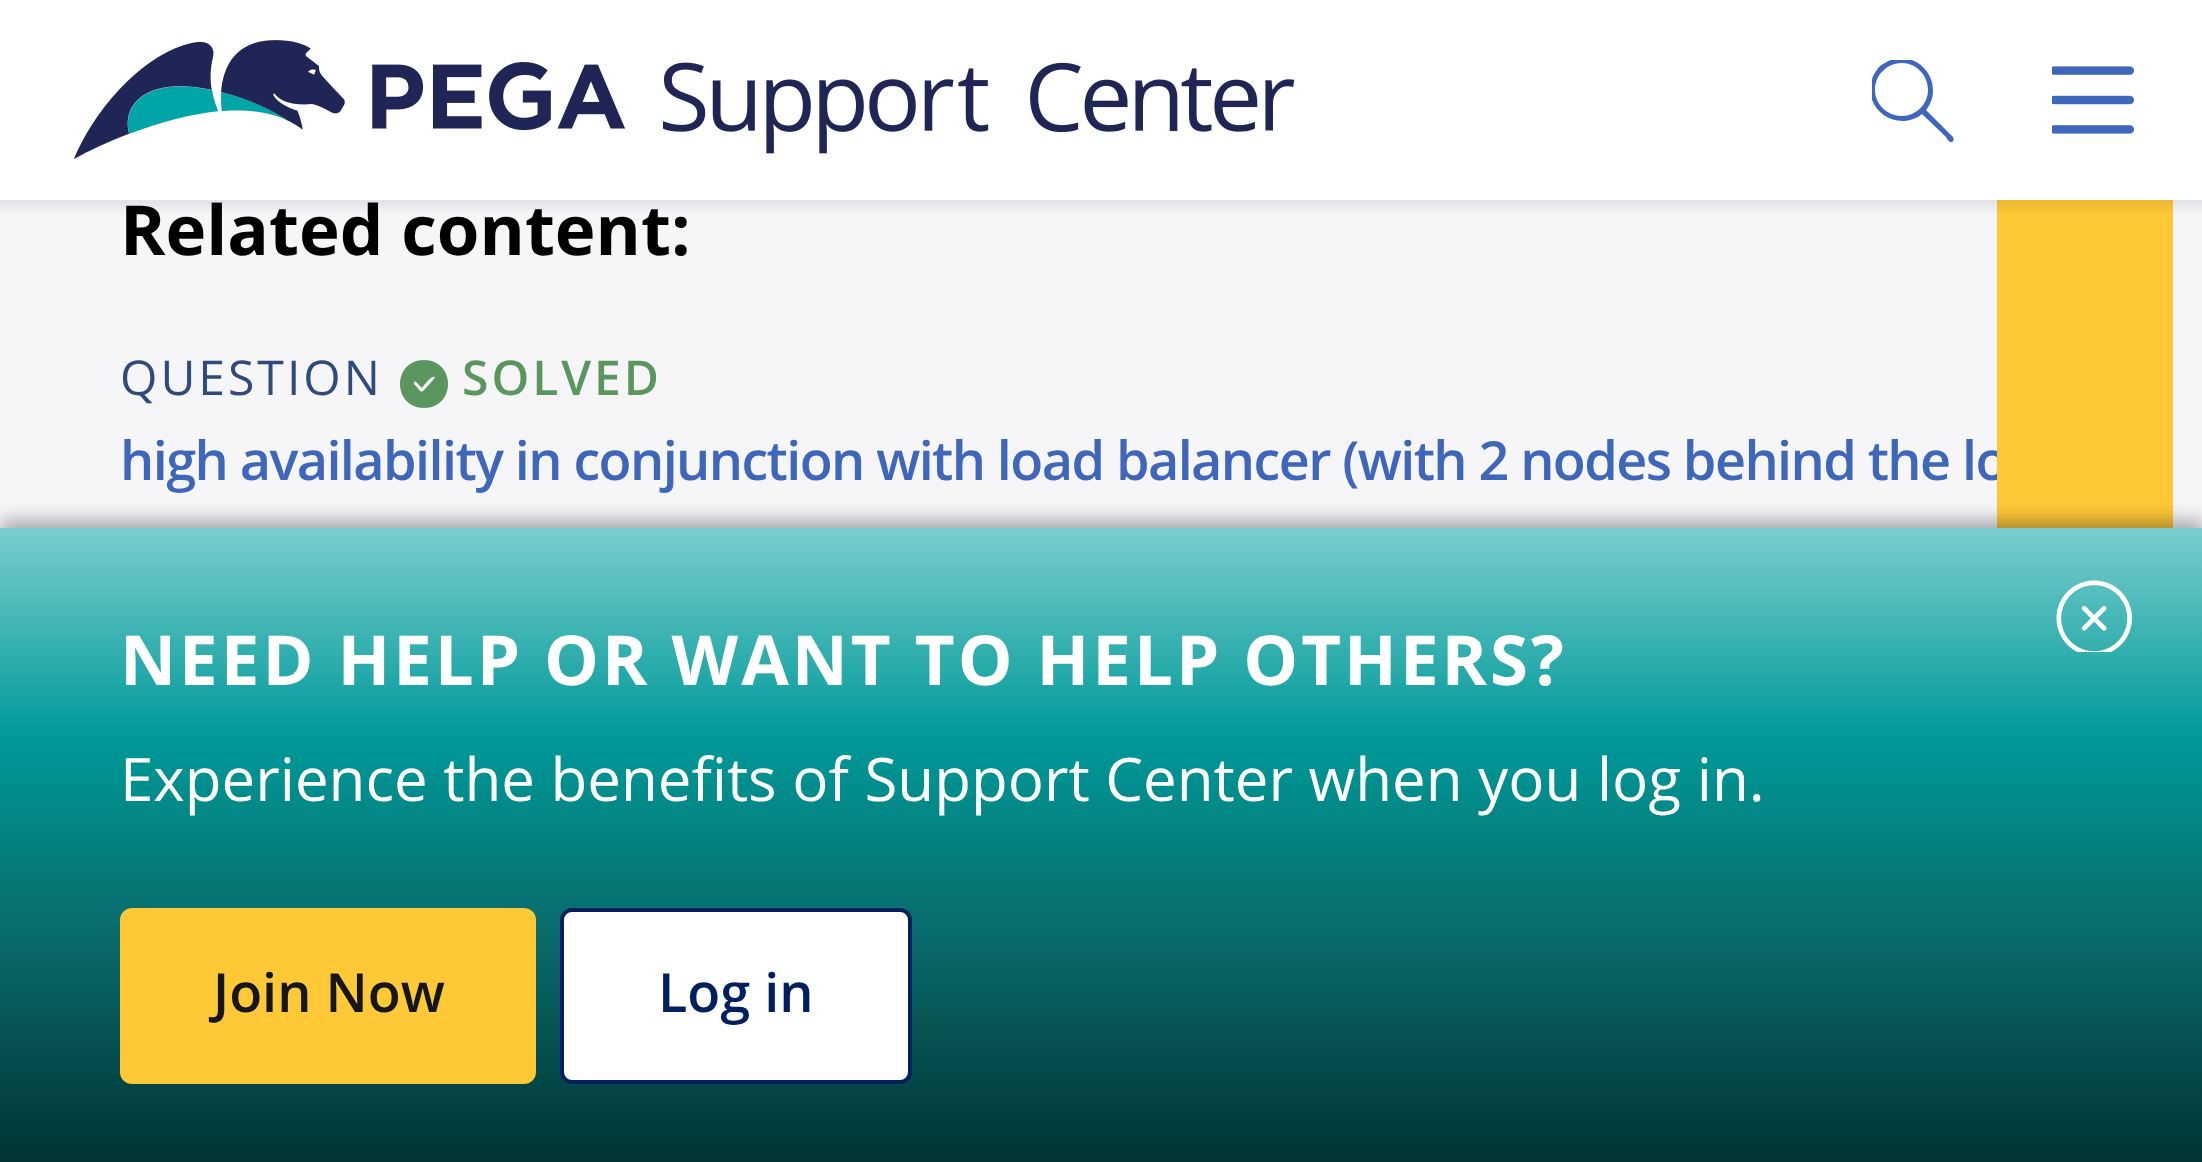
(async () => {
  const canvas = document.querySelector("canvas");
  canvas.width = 2202;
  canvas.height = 1162;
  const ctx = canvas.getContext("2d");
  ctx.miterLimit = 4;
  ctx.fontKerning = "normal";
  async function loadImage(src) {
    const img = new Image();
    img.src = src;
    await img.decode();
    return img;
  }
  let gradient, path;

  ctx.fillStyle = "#f6f6f9";
  ctx.fillRect(0, 0, 2202, 1162);
  ctx.fillStyle = "#5c965f";
  path = new Path2D("M424 360C392 360 392 408 424 408C456 408 456 360 424 360ZM434 379L425 389C421 394 420 391 416 386L414 384C413 382 415 381 416 382L422 388C423 386 432 375 434 377C435 377 435 378 434 379Z");
  ctx.fill(path);
  ctx.font = "bold 69px Open Sans";
  ctx.fillStyle = "#000000";
  ctx.fillText("Related content:", 120, 255);
  ctx.letterSpacing = "3px";
  ctx.font = "48px Open Sans";
  ctx.fillStyle = "#314a7e";
  ctx.fillText("QUESTION", 120, 395);
  ctx.font = "600 48px Open Sans";
  ctx.fillStyle = "#5c965f";
  ctx.fillText("SOLVED", 462, 395);
  ctx.letterSpacing = "-1.6px";
  ctx.font = "600 54px Open Sans";
  ctx.fillStyle = "#3e67bb";
  ctx.fillText("high availability in conjunction with load balancer (with 2 nodes behind the lo", 120, 480);
  ctx.fillStyle = "#ffc836";
  path = new Path2D("M1997 577V-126C1997-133 2002-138 2009-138H2161C2167-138 2173-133 2173-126V577C2173 583 2167 589 2161 589H2009C2002 589 1997 583 1997 577Z");
  ctx.fill(path);
  ctx.fillStyle = "rgba(6, 10, 36, 0.08)";
  ctx.filter = "blur(4px)";
  ctx.beginPath();
  ctx.rect(-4, 0, 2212, 208);
  ctx.fill();
  ctx.filter = "none";
  ctx.fillStyle = "#ffffff";
  ctx.fillRect(0, 0, 2202, 200);
  ctx.drawImage(await loadImage("img/2.png"), 2052, 66, 82, 68);
  ctx.save();
  ctx.beginPath();
  ctx.rect(1872, 60, 84, 84);
  ctx.clip();
  ctx.fillStyle = "#3e67bb";
  path = new Path2D("M1953 137L1926 110C1944 88 1925 53 1895 59C1889 60 1884 63 1879 67C1875 72 1872 77 1871 83C1865 113 1900 132 1922 114L1945 136C1946 137 1949 143 1952 142C1954 141 1954 139 1953 137ZM1875 90C1875 75 1887 63 1902 63C1916 63 1928 75 1928 90C1928 104 1916 116 1902 116C1887 116 1875 104 1875 90Z");
  ctx.fill(path);
  ctx.restore();
  ctx.drawImage(await loadImage("img/1.png"), 73, 40, 1222, 119);
  ctx.fillStyle = "rgba(21, 22, 25, 0.35)";
  ctx.filter = "blur(9px)";
  ctx.beginPath();
  ctx.rect(0, 520, 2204, 636);
  ctx.fill();
  ctx.filter = "none";
  gradient = ctx.createLinearGradient(1102, 528, 1102, 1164);
  gradient.addColorStop(0, "#7acdcd");
  gradient.addColorStop(0.33, "#009999");
  gradient.addColorStop(0.67, "#0a6666");
  gradient.addColorStop(1, "#003333");
  ctx.fillStyle = gradient;
  ctx.fillRect(0, 528, 2202, 634);
  ctx.drawImage(await loadImage("img/3.png"), 2056, 580, 76, 72);
  ctx.letterSpacing = "3px";
  ctx.font = "bold 69px Open Sans";
  ctx.fillStyle = "#ffffff";
  ctx.fillText("NEED HELP OR WANT TO HELP OTHERS?", 120, 685);
  ctx.letterSpacing = "0px";
  ctx.font = "60px Open Sans";
  ctx.fillText("Experience the benefits of Support Center when you log in.", 120, 801);
  ctx.fillStyle = "#ffc836";
  ctx.beginPath();
  ctx.roundRect(120, 908, 416, 176, 12);
  ctx.fill();
  ctx.font = "600 54px Open Sans";
  ctx.fillStyle = "#151619";
  ctx.fillText("Join Now", 213, 1012);
  ctx.fillStyle = "#ffffff";
  ctx.beginPath();
  ctx.roundRect(562, 910, 348, 172, 10);
  ctx.fill();
  ctx.strokeStyle = "#001f5f";
  ctx.lineWidth = 4;
  ctx.stroke();
  ctx.fillStyle = "#001f5f";
  ctx.fillText("Log in", 658, 1012);
})();
